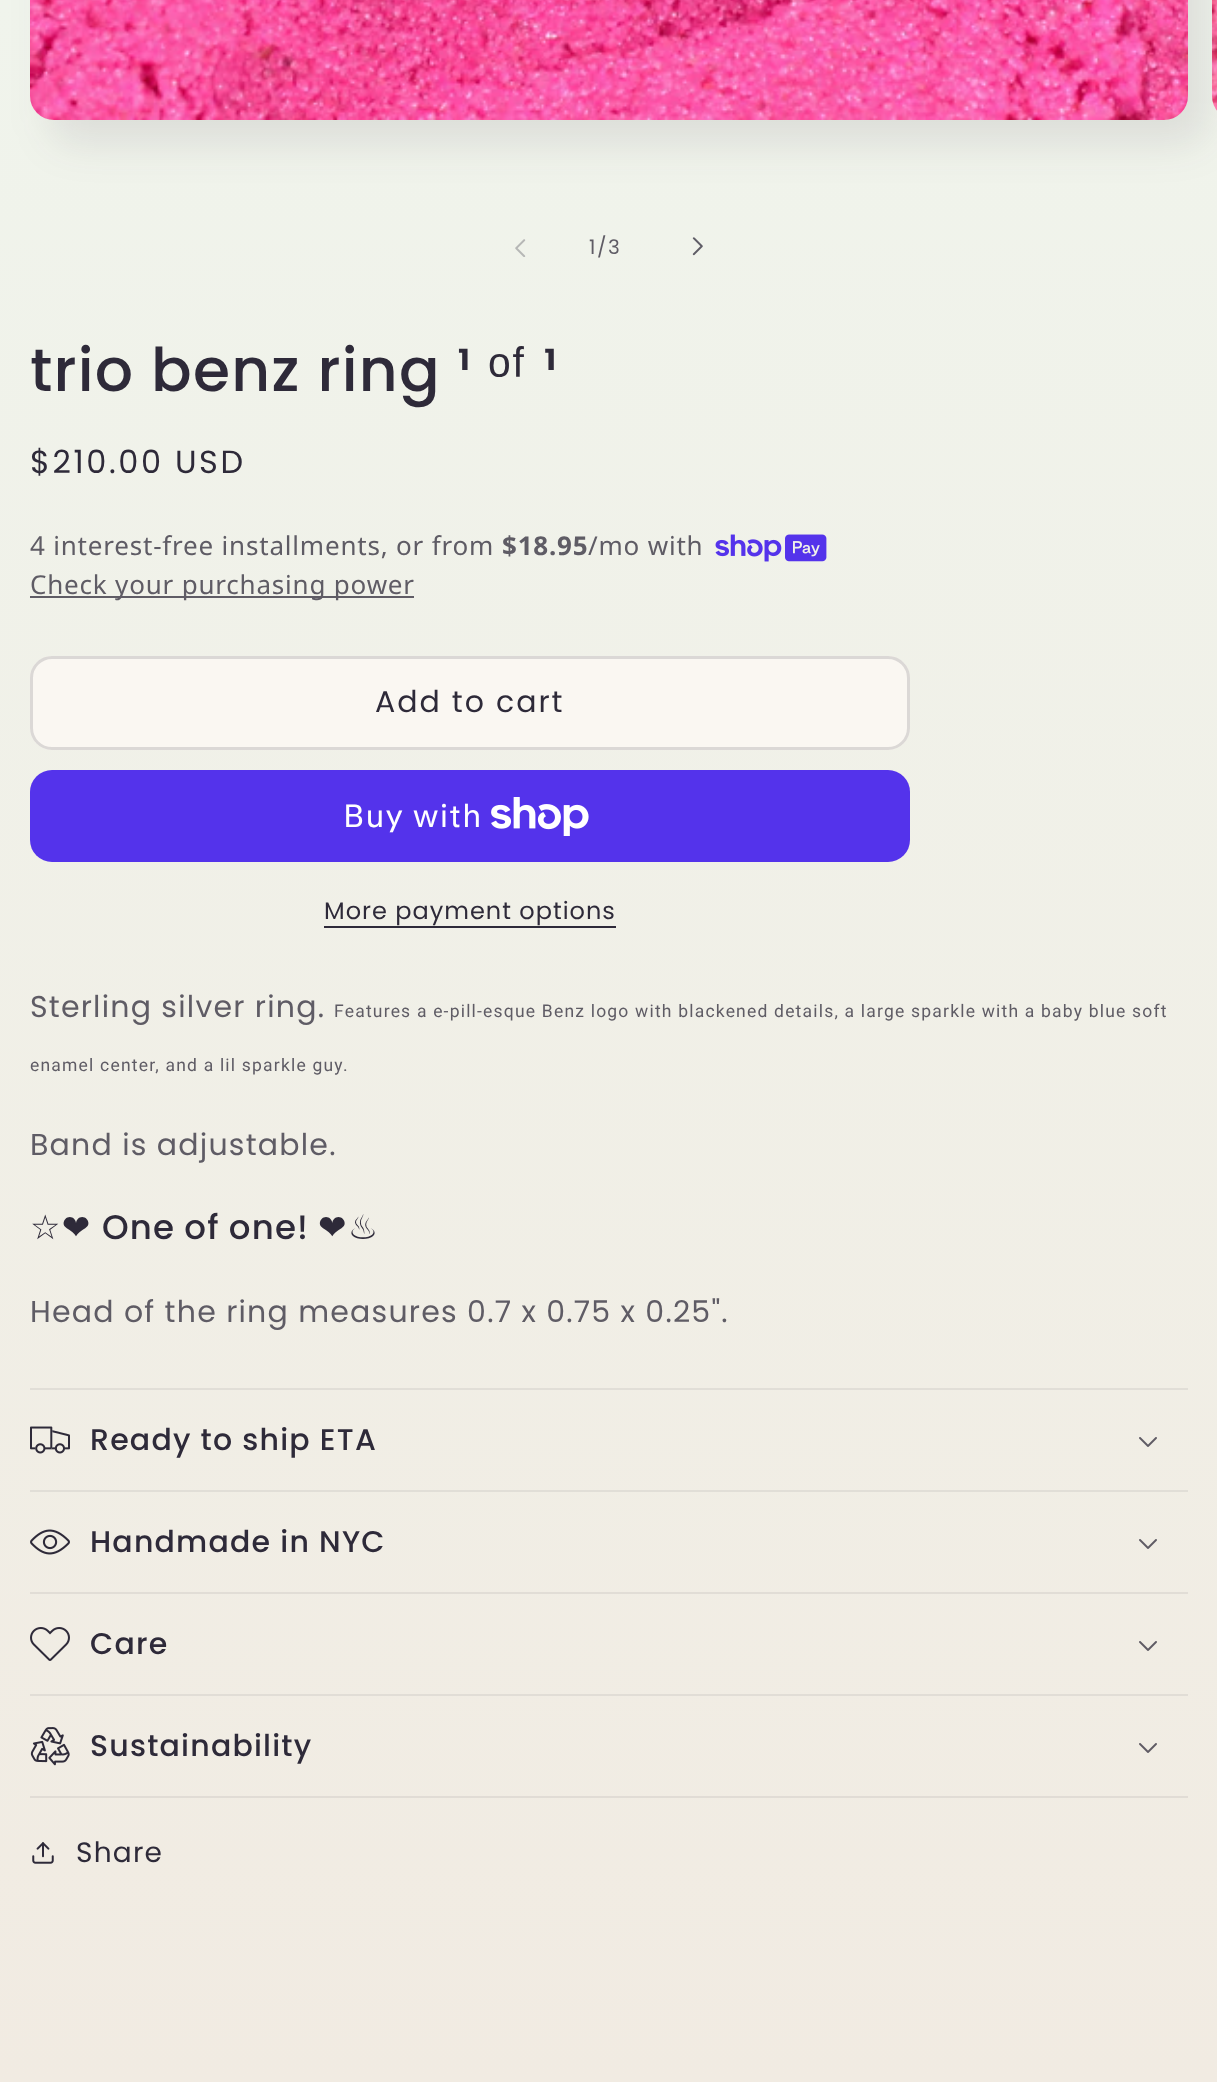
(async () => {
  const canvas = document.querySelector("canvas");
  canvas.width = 1217;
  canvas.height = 2082;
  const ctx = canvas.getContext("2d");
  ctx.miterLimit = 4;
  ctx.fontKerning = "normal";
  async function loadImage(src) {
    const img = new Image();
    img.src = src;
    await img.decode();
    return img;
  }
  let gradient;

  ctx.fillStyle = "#ffffff";
  ctx.fillRect(0, 0, 1217, 2082);
  gradient = ctx.createLinearGradient(609, 0, 609, 2082);
  gradient.addColorStop(0, "#f0f4ec");
  gradient.addColorStop(1, "#f1ebe2");
  ctx.fillStyle = gradient;
  ctx.fillRect(0, 0, 1217, 2082);
  ctx.fillStyle = "rgba(46, 42, 57, 0.1)";
  ctx.filter = "blur(20px)";
  ctx.beginPath();
  ctx.roundRect(50, -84, 1158, 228, 24);
  ctx.fill();
  ctx.filter = "none";
  ctx.drawImage(await loadImage("img/1.png"), 30, 0, 1158, 120);
  ctx.drawImage(await loadImage("img/2.png"), 1212, 0, 5, 111);
  ctx.drawImage(await loadImage("img/3.png"), 515, 239, 11, 18);
  ctx.drawImage(await loadImage("img/4.png"), 692, 237, 11, 19);
  ctx.drawImage(await loadImage("img/5.png"), 715, 534, 112, 28);
  ctx.fillStyle = "#5f5c65";
  ctx.fillRect(30, 596, 384, 2);
  ctx.fillStyle = "#faf7f2";
  ctx.beginPath();
  ctx.roundRect(30, 656, 880, 94, 22);
  ctx.fill();
  ctx.beginPath();
  ctx.roundRect(31, 657, 878, 92, 21);
  ctx.strokeStyle = "#faf7f2";
  ctx.lineWidth = 2;
  ctx.stroke();
  ctx.beginPath();
  ctx.roundRect(31.5, 657.5, 877, 91, 20.5);
  ctx.strokeStyle = "rgba(46, 42, 57, 0.15)";
  ctx.lineWidth = 3;
  ctx.stroke();
  ctx.fillStyle = "#5433eb";
  ctx.beginPath();
  ctx.roundRect(30, 770, 880, 92, 22);
  ctx.fill();
  ctx.drawImage(await loadImage("img/6.png"), 491, 797, 98, 39);
  for (const [x, y, w, h, color] of [
    [324, 926, 292, 2, "#2e2a39"],
    [30, 1388, 1158, 2, "#e1ded7"],
    [30, 1490, 1158, 2, "#e1ded7"],
  ]) {
    ctx.fillStyle = color;
    ctx.fillRect(x, y, w, h);
  }
  ctx.drawImage(await loadImage("img/7.png"), 30, 1426, 40, 28);
  ctx.drawImage(await loadImage("img/8.png"), 1139, 1437, 18, 10);
  ctx.fillStyle = "#e1ddd6";
  ctx.fillRect(30, 1592, 1158, 2);
  ctx.drawImage(await loadImage("img/9.png"), 30, 1529, 40, 26);
  ctx.drawImage(await loadImage("img/10.png"), 1139, 1539, 18, 10);
  ctx.fillRect(30, 1694, 1158, 2);
  ctx.drawImage(await loadImage("img/11.png"), 30, 1627, 40, 34);
  ctx.drawImage(await loadImage("img/12.png"), 1139, 1641, 18, 10);
  ctx.fillStyle = "#e1dcd5";
  ctx.fillRect(30, 1796, 1158, 2);
  ctx.drawImage(await loadImage("img/13.png"), 30, 1727, 40, 39);
  ctx.drawImage(await loadImage("img/14.png"), 1139, 1743, 18, 10);
  ctx.drawImage(await loadImage("img/15.png"), 32, 1842, 22, 22);
  ctx.letterSpacing = "1.5px";
  ctx.font = "20px Poppins";
  ctx.fillStyle = "#5f5c65";
  ctx.fillText("1/3", 589, 254);
  ctx.letterSpacing = "1.2px";
  ctx.font = "500 60px Poppins";
  ctx.fillStyle = "#2e2a39";
  ctx.fillText("trio benz ring ¹", 30, 391);
  ctx.font = "60px Liberation Sans";
  ctx.fillText("ᵒᶠ", 488, 391);
  ctx.font = "500 60px Poppins";
  ctx.fillText("¹", 544, 391);
  ctx.letterSpacing = "2.6px";
  ctx.font = "32px Poppins";
  ctx.fillText("$210.00 USD", 30, 473);
  ctx.letterSpacing = "0.8px";
  ctx.font = "26px Noto Sans";
  ctx.fillStyle = "#5f5c65";
  ctx.fillText("4 interest-free installments, or from", 30, 555);
  ctx.font = "bold 26px Noto Sans";
  ctx.fillText("$18.95", 502, 555);
  ctx.font = "26px Noto Sans";
  ctx.fillText("/mo with", 588, 555);
  ctx.fillText("Check your purchasing power", 30, 594);
  ctx.letterSpacing = "2px";
  ctx.font = "30px Poppins";
  ctx.fillStyle = "#2e2a39";
  ctx.fillText("Add to cart", 375, 712);
  ctx.letterSpacing = "1.2px";
  ctx.font = "32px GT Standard";
  ctx.fillStyle = "#ffffff";
  ctx.fillText("Buy with", 343, 827);
  ctx.letterSpacing = "1px";
  ctx.font = "24px Poppins";
  ctx.fillStyle = "#2e2a39";
  ctx.fillText("More payment options", 324, 919);
  ctx.letterSpacing = "1.2px";
  ctx.font = "30px Poppins";
  ctx.fillStyle = "#5f5c65";
  ctx.fillText("Sterling silver ring.", 30, 1017);
  ctx.font = "17.5px Roboto";
  ctx.fillText("Features a e-pill-esque Benz logo with blackened details, a large sparkle with a baby blue soft", 334, 1017);
  ctx.fillText("enamel center, and a lil sparkle guy.", 30, 1071);
  ctx.font = "30px Poppins";
  ctx.fillText("Band is adjustable.", 30, 1155);
  ctx.font = "34px DejaVu Sans";
  ctx.fillStyle = "#2e2a39";
  ctx.fillText("☆❤︎", 30, 1239);
  ctx.wordSpacing = "-1px";
  ctx.font = "500 34px Poppins";
  ctx.fillText("One of one!", 102, 1239);
  ctx.wordSpacing = "0px";
  ctx.font = "34px DejaVu Sans";
  ctx.fillText("❤︎♨︎", 318, 1239);
  ctx.font = "30px Poppins";
  ctx.fillStyle = "#5f5c65";
  ctx.fillText("Head of the ring measures 0.7 x 0.75 x 0.25\".", 30, 1322);
  ctx.font = "500 30px Poppins";
  ctx.fillStyle = "#2e2a39";
  for (const [text, x, y] of [
    ["Ready to ship ETA", 90, 1450],
    ["Handmade in NYC", 90, 1552],
    ["Care", 90, 1654],
    ["Sustainability", 90, 1756],
  ]) {
    ctx.fillText(text, x, y);
  }
  ctx.font = "28px Poppins";
  ctx.fillText("Share", 76, 1862);
})();
